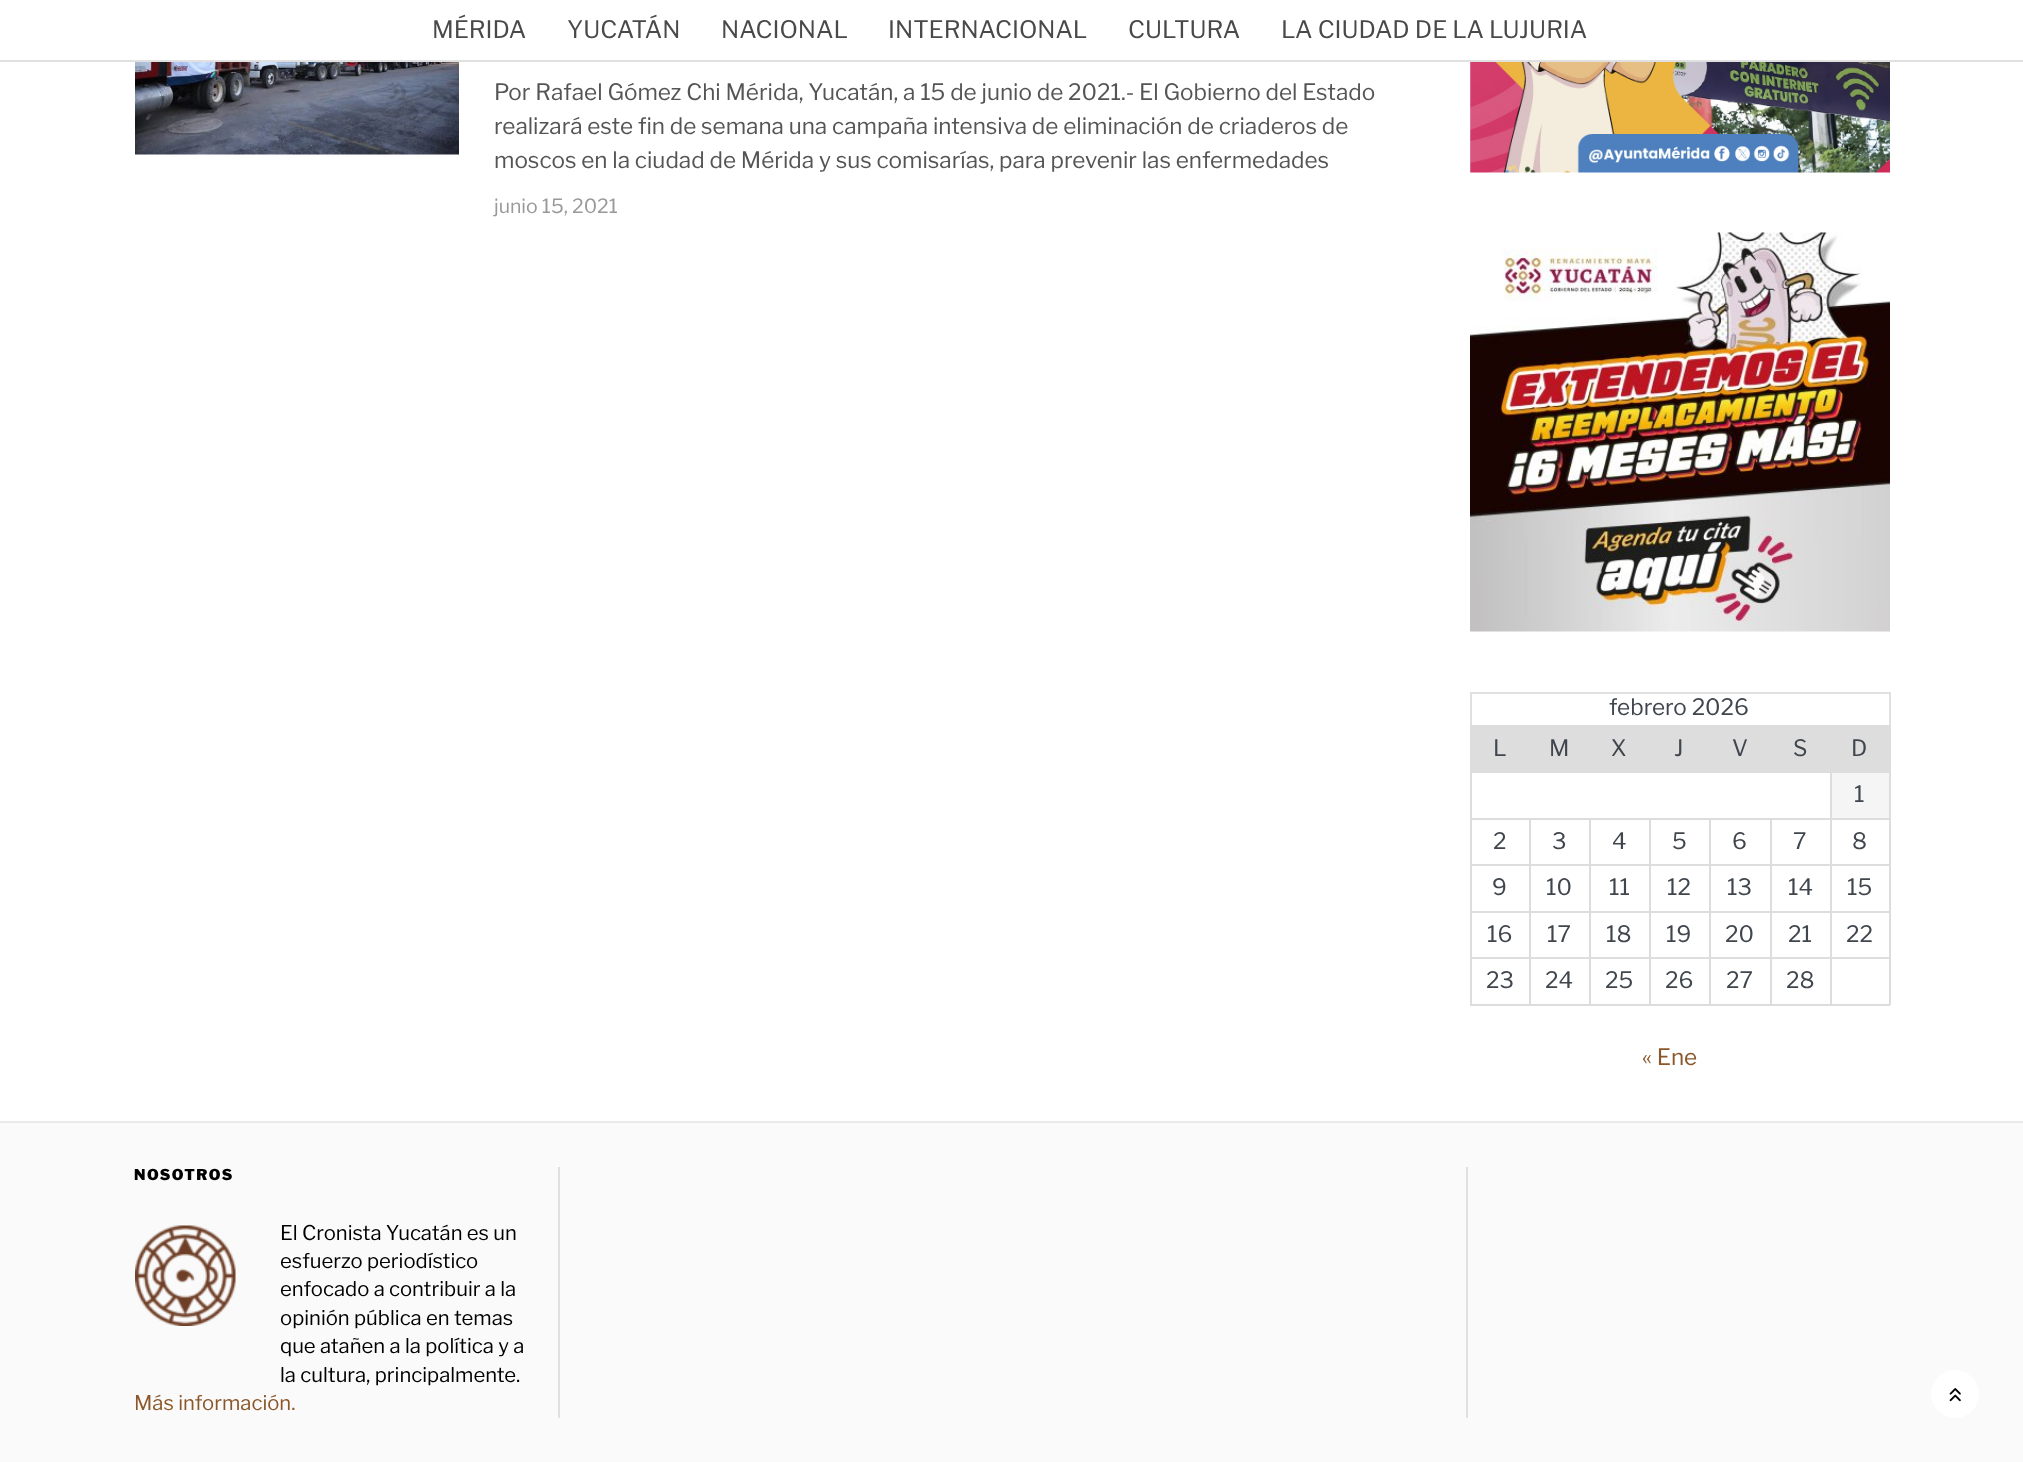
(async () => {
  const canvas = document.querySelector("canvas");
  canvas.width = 2023;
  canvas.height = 1462;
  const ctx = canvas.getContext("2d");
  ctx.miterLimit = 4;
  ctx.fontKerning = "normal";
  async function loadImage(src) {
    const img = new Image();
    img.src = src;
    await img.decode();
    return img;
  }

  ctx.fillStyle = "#ffffff";
  ctx.fillRect(0, 0, 2023, 1462);
  ctx.fillStyle = "#e0e0e1";
  ctx.fillRect(0, 60, 2023, 2);
  ctx.drawImage(await loadImage("img/1.png"), 135, 62, 324, 93);
  ctx.drawImage(await loadImage("img/2.png"), 1470, 62, 420, 111);
  ctx.drawImage(await loadImage("img/3.png"), 1470, 232, 420, 400);
  for (const [x, y, w, h, color] of [
    [1470, 692, 420, 2, "#e0e0e1"],
    [1889, 692, 2, 33, "#e0e0e1"],
    [1470, 692, 2, 33, "#e0e0e1"],
    [1472, 727, 417, 44, "#dddddd"],
    [1470, 725, 420, 2, "#dddddd"],
    [1830, 771, 60, 2, "#dddddd"],
    [1830, 818, 60, 2, "#dddddd"],
    [1830, 864, 60, 2, "#dddddd"],
    [1830, 911, 60, 2, "#dddddd"],
    [1830, 957, 60, 2, "#dddddd"],
    [1889, 957, 2, 48, "#dddddd"],
    [1830, 1004, 60, 2, "#dddddd"],
    [1830, 957, 2, 48, "#dddddd"],
    [1770, 957, 62, 2, "#dddddd"],
    [1830, 911, 2, 48, "#dddddd"],
    [1770, 911, 62, 2, "#dddddd"],
    [1830, 864, 2, 48, "#dddddd"],
    [1770, 864, 62, 2, "#dddddd"],
    [1830, 818, 2, 48, "#dddddd"],
    [1770, 818, 62, 2, "#dddddd"],
    [1830, 771, 2, 48, "#dddddd"],
    [1470, 771, 362, 2, "#dddddd"],
    [1770, 1004, 62, 2, "#dddddd"],
    [1770, 957, 2, 48, "#dddddd"],
    [1709, 957, 63, 2, "#dddddd"],
    [1770, 911, 2, 48, "#dddddd"],
    [1709, 911, 63, 2, "#dddddd"],
    [1770, 864, 2, 48, "#dddddd"],
    [1709, 864, 63, 2, "#dddddd"],
    [1770, 818, 2, 48, "#dddddd"],
    [1709, 818, 63, 2, "#dddddd"],
    [1709, 1004, 63, 2, "#dddddd"],
    [1709, 957, 2, 48, "#dddddd"],
    [1649, 957, 61, 2, "#dddddd"],
    [1709, 911, 2, 48, "#dddddd"],
    [1649, 911, 61, 2, "#dddddd"],
    [1709, 864, 2, 48, "#dddddd"],
    [1649, 864, 61, 2, "#dddddd"],
    [1709, 818, 2, 48, "#dddddd"],
    [1649, 818, 61, 2, "#dddddd"],
    [1649, 1004, 61, 2, "#dddddd"],
    [1649, 957, 2, 48, "#dddddd"],
    [1589, 957, 61, 2, "#dddddd"],
    [1649, 911, 2, 48, "#dddddd"],
    [1589, 911, 61, 2, "#dddddd"],
    [1649, 864, 2, 48, "#dddddd"],
    [1589, 864, 61, 2, "#dddddd"],
    [1649, 818, 2, 48, "#dddddd"],
    [1589, 818, 61, 2, "#dddddd"],
    [1589, 1004, 61, 2, "#dddddd"],
    [1589, 957, 2, 48, "#dddddd"],
    [1529, 957, 61, 2, "#dddddd"],
    [1589, 911, 2, 48, "#dddddd"],
    [1529, 911, 61, 2, "#dddddd"],
    [1589, 864, 2, 48, "#dddddd"],
    [1529, 864, 61, 2, "#dddddd"],
    [1589, 818, 2, 48, "#dddddd"],
    [1529, 818, 61, 2, "#dddddd"],
    [1529, 1004, 61, 2, "#dddddd"],
    [1529, 957, 2, 48, "#dddddd"],
    [1470, 957, 60, 2, "#dddddd"],
    [1529, 911, 2, 48, "#dddddd"],
    [1470, 911, 60, 2, "#dddddd"],
    [1529, 864, 2, 48, "#dddddd"],
    [1470, 864, 60, 2, "#dddddd"],
    [1529, 818, 2, 48, "#dddddd"],
    [1470, 818, 60, 2, "#dddddd"],
    [1470, 1004, 60, 2, "#dddddd"],
    [1470, 957, 2, 48, "#dddddd"],
    [1470, 911, 2, 48, "#dddddd"],
    [1470, 864, 2, 48, "#dddddd"],
    [1470, 818, 2, 48, "#dddddd"],
    [1470, 771, 2, 48, "#dddddd"],
    [1470, 725, 2, 48, "#dddddd"],
    [1889, 911, 2, 48, "#dddddd"],
    [1889, 864, 2, 48, "#dddddd"],
    [1889, 818, 2, 48, "#dddddd"],
    [1889, 771, 2, 48, "#dddddd"],
    [1889, 725, 2, 48, "#dddddd"],
    [1832, 773, 57, 45, "#f5f5f5"],
    [0, 1123, 2023, 339, "#fafafa"],
    [0, 1121, 2023, 2, "#eaeaea"],
  ]) {
    ctx.fillStyle = color;
    ctx.fillRect(x, y, w, h);
  }
  ctx.drawImage(await loadImage("img/4.png"), 135, 1225, 101, 101);
  ctx.fillStyle = "#e0e0e0";
  ctx.fillRect(558, 1167, 2, 251);
  ctx.fillRect(1466, 1167, 2, 251);
  ctx.fillStyle = "#ffffff";
  ctx.beginPath();
  ctx.arc(1955, 1394, 24, 0, Math.PI * 2);
  ctx.fill();
  ctx.drawImage(await loadImage("img/5.png"), 1949, 1388, 12, 14);
  ctx.font = "24px Libre Franklin";
  ctx.fillStyle = "#494949";
  for (const [text, x, y] of [
    ["MÉRIDA", 432, 38],
    ["YUCATÁN", 567, 38],
    ["NACIONAL", 721, 38],
    ["INTERNACIONAL", 888, 38],
    ["CULTURA", 1128, 38],
    ["LA CIUDAD DE LA LUJURIA", 1281, 38],
  ]) {
    ctx.fillText(text, x, y);
  }
  ctx.font = "22.5px Libre Franklin";
  ctx.fillStyle = "#555555";
  for (const [text, x, y] of [
    ["Por Rafael Gómez Chi Mérida, Yucatán, a 15 de junio de 2021.- El Gobierno del Estado", 494, 100],
    ["realizará este fin de semana una campaña intensiva de eliminación de criaderos de", 494, 134],
    ["moscos en la ciudad de Mérida y sus comisarías, para prevenir las enfermedades", 494, 168],
  ]) {
    ctx.fillText(text, x, y);
  }
  ctx.font = "19.5px Libre Franklin";
  ctx.fillStyle = "#999999";
  ctx.fillText("junio 15, 2021", 494, 213);
  ctx.font = "22.5px Libre Franklin";
  ctx.fillStyle = "#40464d";
  for (const [text, x, y] of [
    ["febrero 2026", 1609, 715],
    ["L", 1493, 756],
    ["M", 1549, 756],
    ["X", 1611, 756],
    ["J", 1674, 756],
    ["V", 1732, 756],
    ["S", 1793, 756],
    ["D", 1851, 756],
    ["1", 1854, 802],
    ["2", 1493, 849],
    ["3", 1552, 849],
    ["4", 1612, 849],
    ["5", 1672, 849],
    ["6", 1732, 849],
    ["7", 1793, 849],
    ["8", 1852, 849],
    ["9", 1492, 895],
    ["10", 1546, 895],
    ["11", 1609, 895],
    ["12", 1667, 895],
    ["13", 1727, 895],
    ["14", 1788, 895],
    ["15", 1847, 895],
    ["16", 1487, 942],
    ["17", 1547, 942],
    ["18", 1606, 942],
    ["19", 1666, 942],
    ["20", 1725, 942],
    ["21", 1788, 942],
    ["22", 1846, 942],
    ["23", 1486, 988],
    ["24", 1545, 988],
    ["25", 1605, 988],
    ["26", 1665, 988],
    ["27", 1726, 988],
    ["28", 1786, 988],
  ]) {
    ctx.fillText(text, x, y);
  }
  ctx.fillStyle = "#8b572a";
  ctx.fillText("« Ene", 1642, 1065);
  ctx.letterSpacing = "1.5px";
  ctx.font = "900 15px Libre Franklin";
  ctx.fillStyle = "#000000";
  ctx.fillText("NOSOTROS", 134, 1180);
  ctx.letterSpacing = "0px";
  ctx.font = "20.25px Libre Franklin";
  for (const [text, x, y] of [
    ["El Cronista Yucatán es un", 280, 1240],
    ["esfuerzo periodístico", 280, 1268],
    ["enfocado a contribuir a la", 280, 1296],
    ["opinión pública en temas", 280, 1325],
    ["que atañen a la política y a", 280, 1353],
    ["la cultura, principalmente.", 280, 1382],
  ]) {
    ctx.fillText(text, x, y);
  }
  ctx.fillStyle = "#8b572a";
  ctx.fillText("Más información.", 134, 1410);
})();
